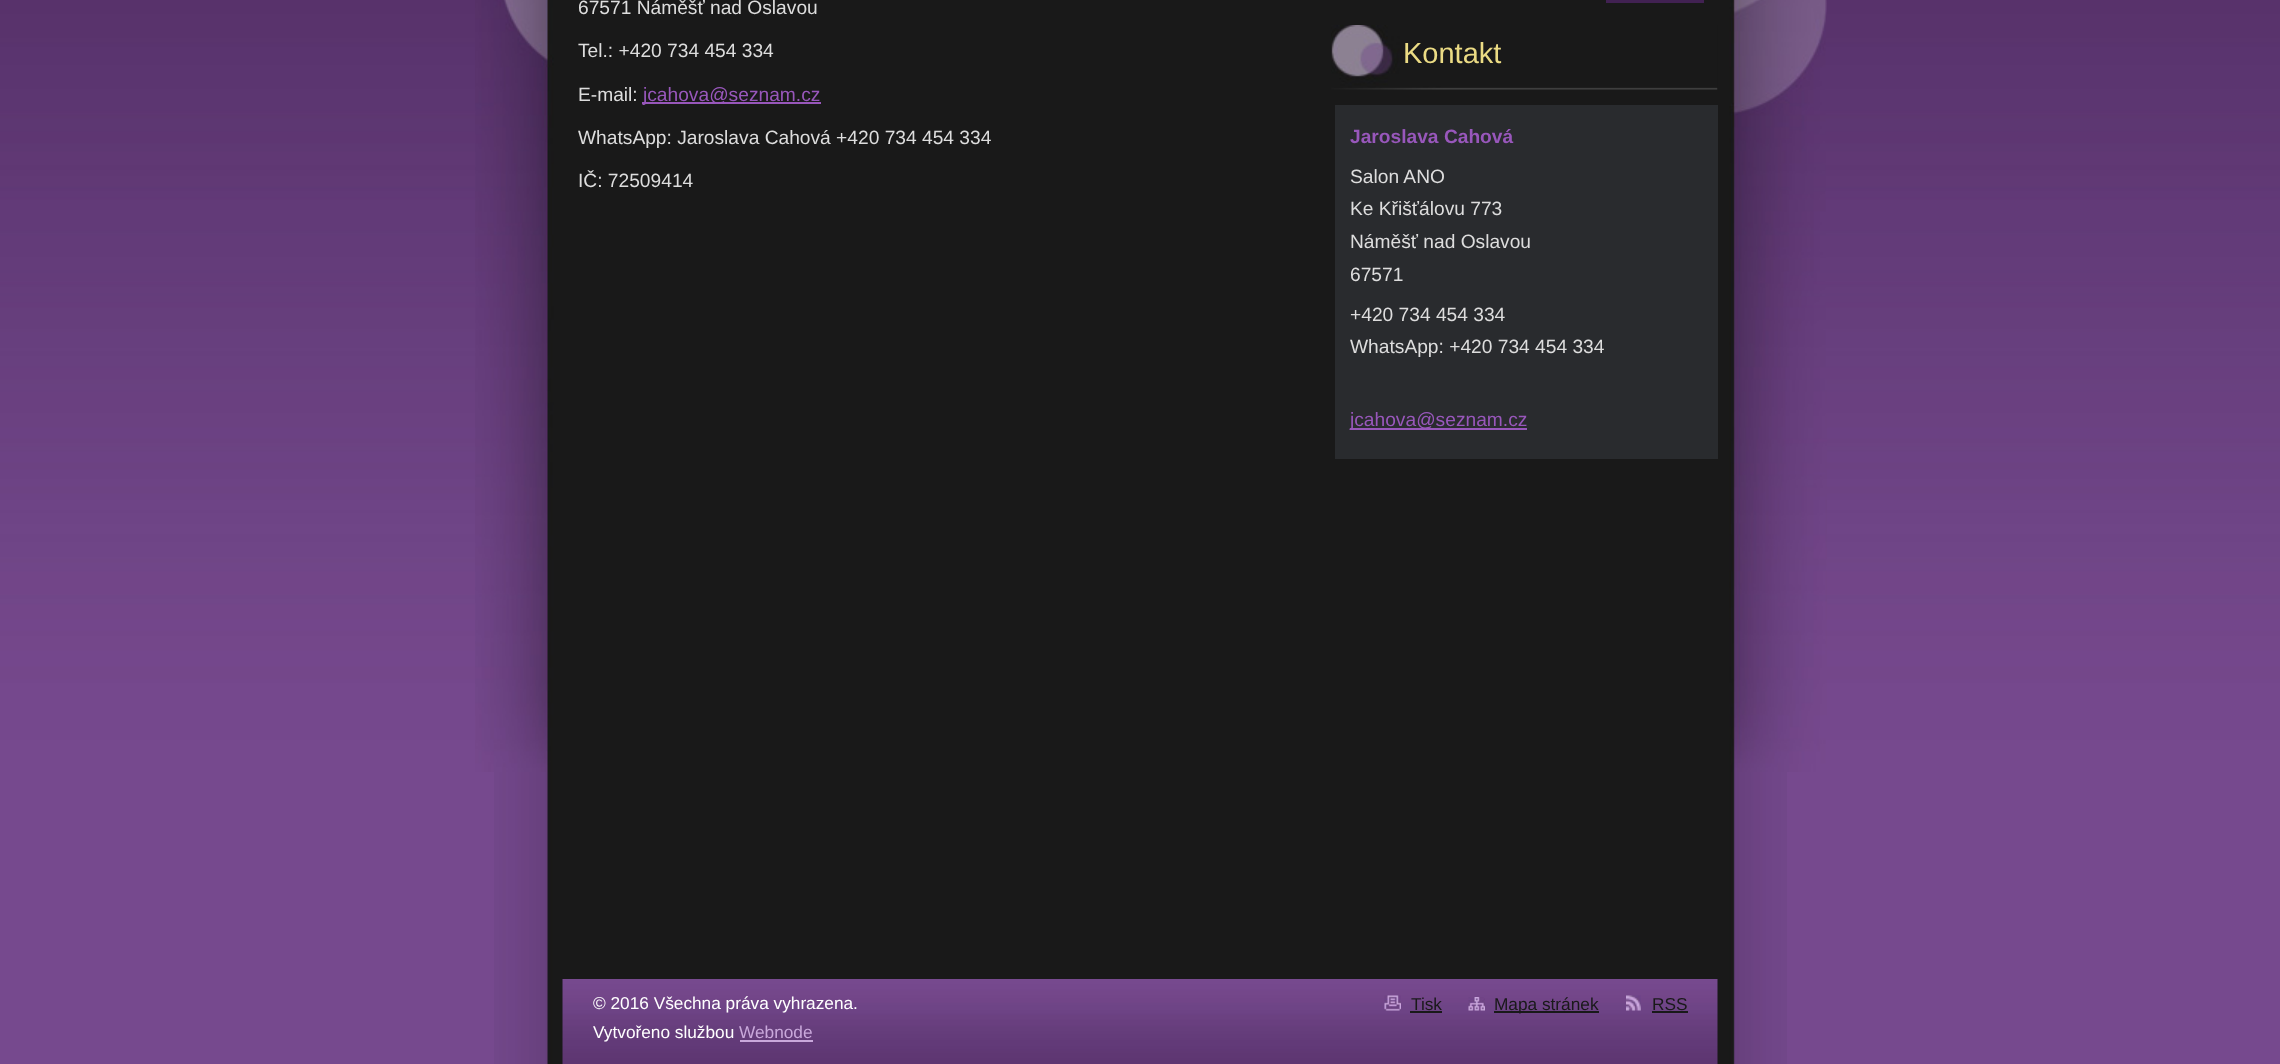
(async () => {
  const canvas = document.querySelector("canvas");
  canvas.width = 2280;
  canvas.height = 1064;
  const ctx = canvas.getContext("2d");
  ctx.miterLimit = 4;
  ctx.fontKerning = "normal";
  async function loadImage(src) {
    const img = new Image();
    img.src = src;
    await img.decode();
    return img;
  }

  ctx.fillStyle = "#76498e";
  ctx.fillRect(0, 0, 2280, 1064);
  ctx.drawImage(await loadImage("img/1.png"), 494, 772, 1293, 292);
  ctx.drawImage(await loadImage("img/2.png"), 0, 0, 2280, 772);
  ctx.drawImage(await loadImage("img/3.png"), 475, 0, 1352, 772);
  ctx.fillStyle = "#9857bb";
  ctx.fillRect(642, 102, 179, 2);
  ctx.fillStyle = "#412152";
  ctx.fillRect(1606, 0, 98, 3);
  ctx.drawImage(await loadImage("img/4.png"), 1331, 25, 387, 65);
  ctx.fillStyle = "#292b2e";
  ctx.fillRect(1335, 105, 383, 354);
  ctx.fillStyle = "#9857bb";
  ctx.fillRect(1350, 428, 177, 2);
  ctx.drawImage(await loadImage("img/5.png"), 562, 979, 1156, 85);
  ctx.fillStyle = "#c9a8db";
  ctx.fillRect(740, 1040, 73, 2);
  ctx.drawImage(await loadImage("img/6.png"), 1384, 995, 17, 16);
  ctx.fillStyle = "#191919";
  ctx.fillRect(1410, 1011, 32, 2);
  ctx.drawImage(await loadImage("img/7.png"), 1468, 997, 17, 14);
  ctx.fillRect(1494, 1011, 105, 2);
  ctx.drawImage(await loadImage("img/8.png"), 1626, 995, 15, 16);
  ctx.fillRect(1652, 1011, 36, 2);
  ctx.font = "19.2px Liberation Sans";
  ctx.fillStyle = "#dddddd";
  for (const [text, x, y] of [
    ["67571 Náměšť nad Oslavou", 578, 14],
    ["Tel.: +420 734 454 334", 578, 57],
    ["E-mail:", 578, 101],
  ]) {
    ctx.fillText(text, x, y);
  }
  ctx.fillStyle = "#9857bb";
  ctx.fillText("jcahova@seznam.cz", 643, 101);
  ctx.fillStyle = "#dddddd";
  ctx.fillText("WhatsApp: Jaroslava Cahová +420 734 454 334", 578, 144);
  ctx.fillText("IČ: 72509414", 578, 187);
  ctx.font = "29px Liberation Sans";
  ctx.fillStyle = "#ebdb84";
  ctx.fillText("Kontakt", 1403, 63);
  ctx.font = "bold 19.2px Liberation Sans";
  ctx.fillStyle = "#9857bb";
  ctx.fillText("Jaroslava Cahová", 1350, 143);
  ctx.font = "19.2px Liberation Sans";
  ctx.fillStyle = "#dddddd";
  for (const [text, x, y] of [
    ["Salon ANO", 1350, 183],
    ["Ke Křišťálovu 773", 1350, 215],
    ["Náměšť nad Oslavou", 1350, 248],
    ["67571", 1350, 281],
    ["+420 734 454 334", 1350, 321],
    ["WhatsApp: +420 734 454 334", 1350, 353],
  ]) {
    ctx.fillText(text, x, y);
  }
  ctx.fillStyle = "#9857bb";
  ctx.fillText("jcahova@seznam.cz", 1350, 426);
  ctx.font = "17.25px Liberation Sans";
  ctx.fillStyle = "#ffffff";
  ctx.fillText("© 2016 Všechna práva vyhrazena.", 593, 1009);
  ctx.fillText("Vytvořeno službou", 593, 1038);
  ctx.fillStyle = "#c9a8db";
  ctx.fillText("Webnode", 739, 1038);
  ctx.fillStyle = "#191919";
  for (const [text, x, y] of [
    ["Tisk", 1411, 1010],
    ["Mapa stránek", 1494, 1010],
    ["RSS", 1652, 1010],
  ]) {
    ctx.fillText(text, x, y);
  }
})();
